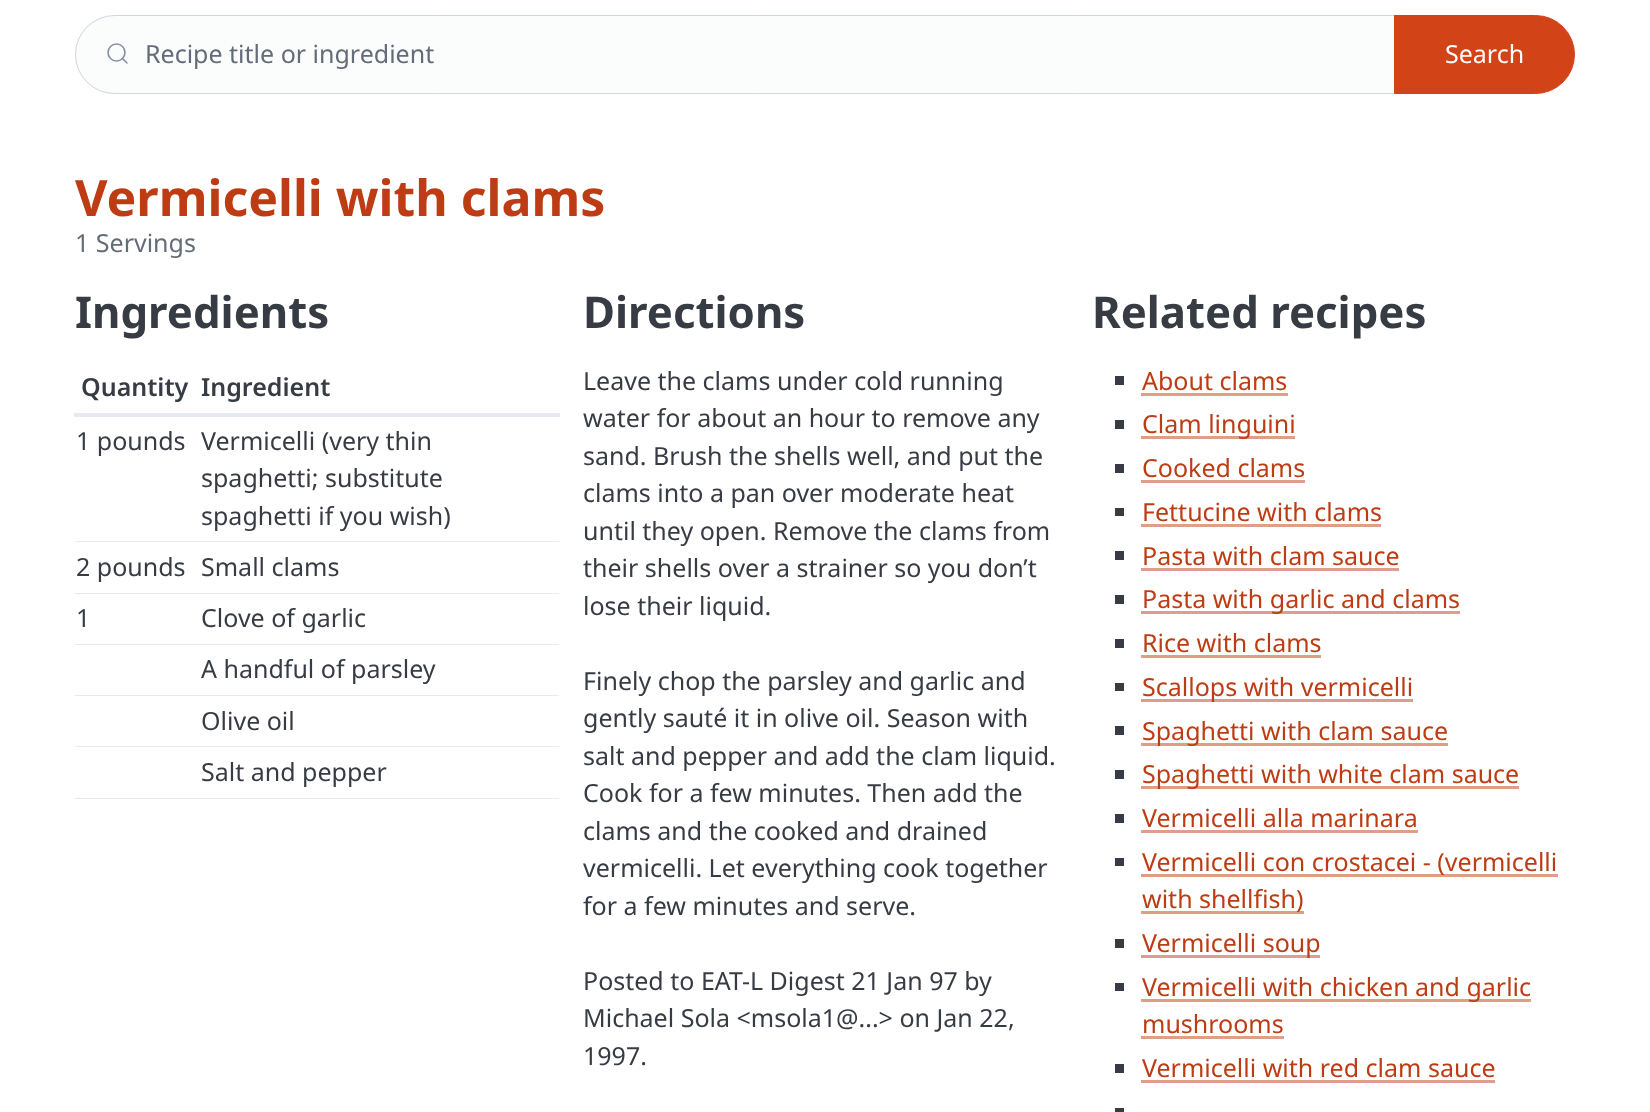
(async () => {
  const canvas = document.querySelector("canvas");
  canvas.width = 1650;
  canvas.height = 1112;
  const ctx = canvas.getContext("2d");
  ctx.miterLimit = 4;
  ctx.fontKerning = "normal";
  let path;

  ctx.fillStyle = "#ffffff";
  ctx.fillRect(0, 0, 1650, 1112);
  ctx.fillStyle = "#fbfcfc";
  ctx.beginPath();
  ctx.roundRect(75, 15, 1320, 79, [39.5, 0, 0, 39.5]);
  ctx.fill();
  ctx.beginPath();
  ctx.arc(116.5, 52.5, 8.5, 0, Math.PI * 2);
  ctx.strokeStyle = "#8891a4";
  ctx.lineWidth = 1.6;
  ctx.stroke();
  path = new Path2D("M127 63L122.5 58.5");
  ctx.lineCap = "round";
  ctx.lineJoin = "round";
  ctx.stroke(path);
  ctx.beginPath();
  ctx.roundRect(75.5, 15.5, 1319, 78, [39, 0, 0, 39]);
  ctx.strokeStyle = "#cfd5e2";
  ctx.lineWidth = 1;
  ctx.lineJoin = "miter";
  ctx.stroke();
  ctx.fillStyle = "#d24317";
  ctx.beginPath();
  ctx.roundRect(1394.5, 15.5, 180, 78, [0, 39, 39, 0]);
  ctx.fill();
  ctx.strokeStyle = "#d24317";
  ctx.stroke();
  for (const [x, y, w, h, color] of [
    [74, 413, 486, 4, "#e7eaf0"],
    [75, 541, 484, 1, "#e7eaf0"],
    [75, 593, 484, 1, "#e7eaf0"],
    [75, 644, 484, 1, "#e7eaf0"],
    [75, 695, 484, 1, "#e7eaf0"],
    [75, 746, 484, 1, "#e7eaf0"],
    [75, 798, 484, 1, "#e7eaf0"],
    [1115, 376, 9, 9, "#373c44"],
    [1141, 393, 147, 3, "#de9e89"],
    [1115, 420, 9, 9, "#373c44"],
    [1141, 436, 154, 3, "#de9e89"],
    [1115, 464, 9, 9, "#373c44"],
    [1141, 480, 164, 3, "#de9e89"],
    [1115, 508, 9, 8, "#373c44"],
    [1141, 524, 240, 3, "#de9e89"],
    [1115, 551, 9, 9, "#373c44"],
    [1141, 568, 258, 3, "#de9e89"],
    [1115, 595, 9, 9, "#373c44"],
    [1141, 611, 319, 3, "#de9e89"],
    [1115, 639, 9, 9, "#373c44"],
    [1141, 655, 180, 3, "#de9e89"],
    [1115, 683, 9, 8, "#373c44"],
    [1141, 699, 272, 3, "#de9e89"],
    [1115, 726, 9, 9, "#373c44"],
    [1141, 743, 307, 3, "#de9e89"],
    [1115, 770, 9, 9, "#373c44"],
    [1141, 786, 378, 3, "#de9e89"],
    [1115, 814, 9, 9, "#373c44"],
    [1141, 830, 277, 3, "#de9e89"],
    [1115, 858, 9, 8, "#373c44"],
    [1141, 874, 417, 3, "#de9e89"],
    [1141, 911, 163, 3, "#de9e89"],
    [1115, 939, 9, 9, "#373c44"],
    [1141, 955, 179, 3, "#de9e89"],
    [1115, 983, 9, 8, "#373c44"],
    [1141, 999, 390, 3, "#de9e89"],
    [1141, 1036, 143, 3, "#de9e89"],
    [1115, 1064, 9, 9, "#373c44"],
    [1141, 1080, 354, 3, "#de9e89"],
    [1115, 1108, 9, 4, "#373c44"],
  ]) {
    ctx.fillStyle = color;
    ctx.fillRect(x, y, w, h);
  }
  ctx.font = "25px Noto Sans";
  ctx.fillStyle = "#646b79";
  ctx.fillText("Recipe title or ingredient", 145, 63);
  ctx.fillStyle = "#ffffff";
  ctx.fillText("Search", 1445, 63);
  ctx.font = "bold 50px Noto Sans";
  ctx.fillStyle = "#bd3c13";
  ctx.fillText("Vermicelli with clams", 75, 216);
  ctx.font = "25px Noto Sans";
  ctx.fillStyle = "#646b79";
  ctx.fillText("1 Servings", 75, 252);
  ctx.font = "bold 43.75px Noto Sans";
  ctx.fillStyle = "#373c44";
  ctx.fillText("Ingredients", 75, 328);
  ctx.font = "600 25px Noto Sans";
  ctx.fillText("Quantity", 81, 396);
  ctx.fillText("Ingredient", 201, 396);
  ctx.font = "25px Noto Sans";
  for (const [text, x, y] of [
    ["1 pounds", 76, 450],
    ["Vermicelli (very thin", 201, 450],
    ["spaghetti; substitute", 201, 487],
    ["spaghetti if you wish)", 201, 525],
    ["2 pounds", 76, 576],
    ["Small clams", 201, 576],
    ["1", 76, 627],
    ["Clove of garlic", 201, 627],
    ["A handful of parsley", 201, 678],
    ["Olive oil", 201, 730],
    ["Salt and pepper", 201, 781],
  ]) {
    ctx.fillText(text, x, y);
  }
  ctx.font = "bold 43.75px Noto Sans";
  ctx.fillText("Directions", 583, 328);
  ctx.font = "25px Noto Sans";
  for (const [text, x, y] of [
    ["Leave the clams under cold running", 583, 390],
    ["water for about an hour to remove any", 583, 427],
    ["sand. Brush the shells well, and put the", 583, 465],
    ["clams into a pan over moderate heat", 583, 502],
    ["until they open. Remove the clams from", 583, 540],
    ["their shells over a strainer so you don’t", 583, 577],
    ["lose their liquid.", 583, 615],
    ["Finely chop the parsley and garlic and", 583, 690],
    ["gently sauté it in olive oil. Season with", 583, 727],
    ["salt and pepper and add the clam liquid.", 583, 765],
    ["Cook for a few minutes. Then add the", 583, 802],
    ["clams and the cooked and drained", 583, 840],
    ["vermicelli. Let everything cook together", 583, 877],
    ["for a few minutes and serve.", 583, 915],
    ["Posted to EAT-L Digest 21 Jan 97 by", 583, 990],
    ["Michael Sola <msola1@...> on Jan 22,", 583, 1027],
    ["1997.", 583, 1065],
  ]) {
    ctx.fillText(text, x, y);
  }
  ctx.font = "bold 43.75px Noto Sans";
  ctx.fillText("Related recipes", 1092, 328);
  ctx.font = "25px Noto Sans";
  ctx.fillStyle = "#bd3c13";
  for (const [text, x, y] of [
    ["About clams", 1142, 390],
    ["Clam linguini", 1142, 433],
    ["Cooked clams", 1142, 477],
    ["Fettucine with clams", 1142, 521],
    ["Pasta with clam sauce", 1142, 565],
    ["Pasta with garlic and clams", 1142, 608],
    ["Rice with clams", 1142, 652],
    ["Scallops with vermicelli", 1142, 696],
    ["Spaghetti with clam sauce", 1142, 740],
    ["Spaghetti with white clam sauce", 1142, 783],
    ["Vermicelli alla marinara", 1142, 827],
    ["Vermicelli con crostacei - (vermicelli", 1142, 871],
    ["with shellfish)", 1142, 908],
    ["Vermicelli soup", 1142, 952],
    ["Vermicelli with chicken and garlic", 1142, 996],
    ["mushrooms", 1142, 1033],
    ["Vermicelli with red clam sauce", 1142, 1077],
  ]) {
    ctx.fillText(text, x, y);
  }
})();
